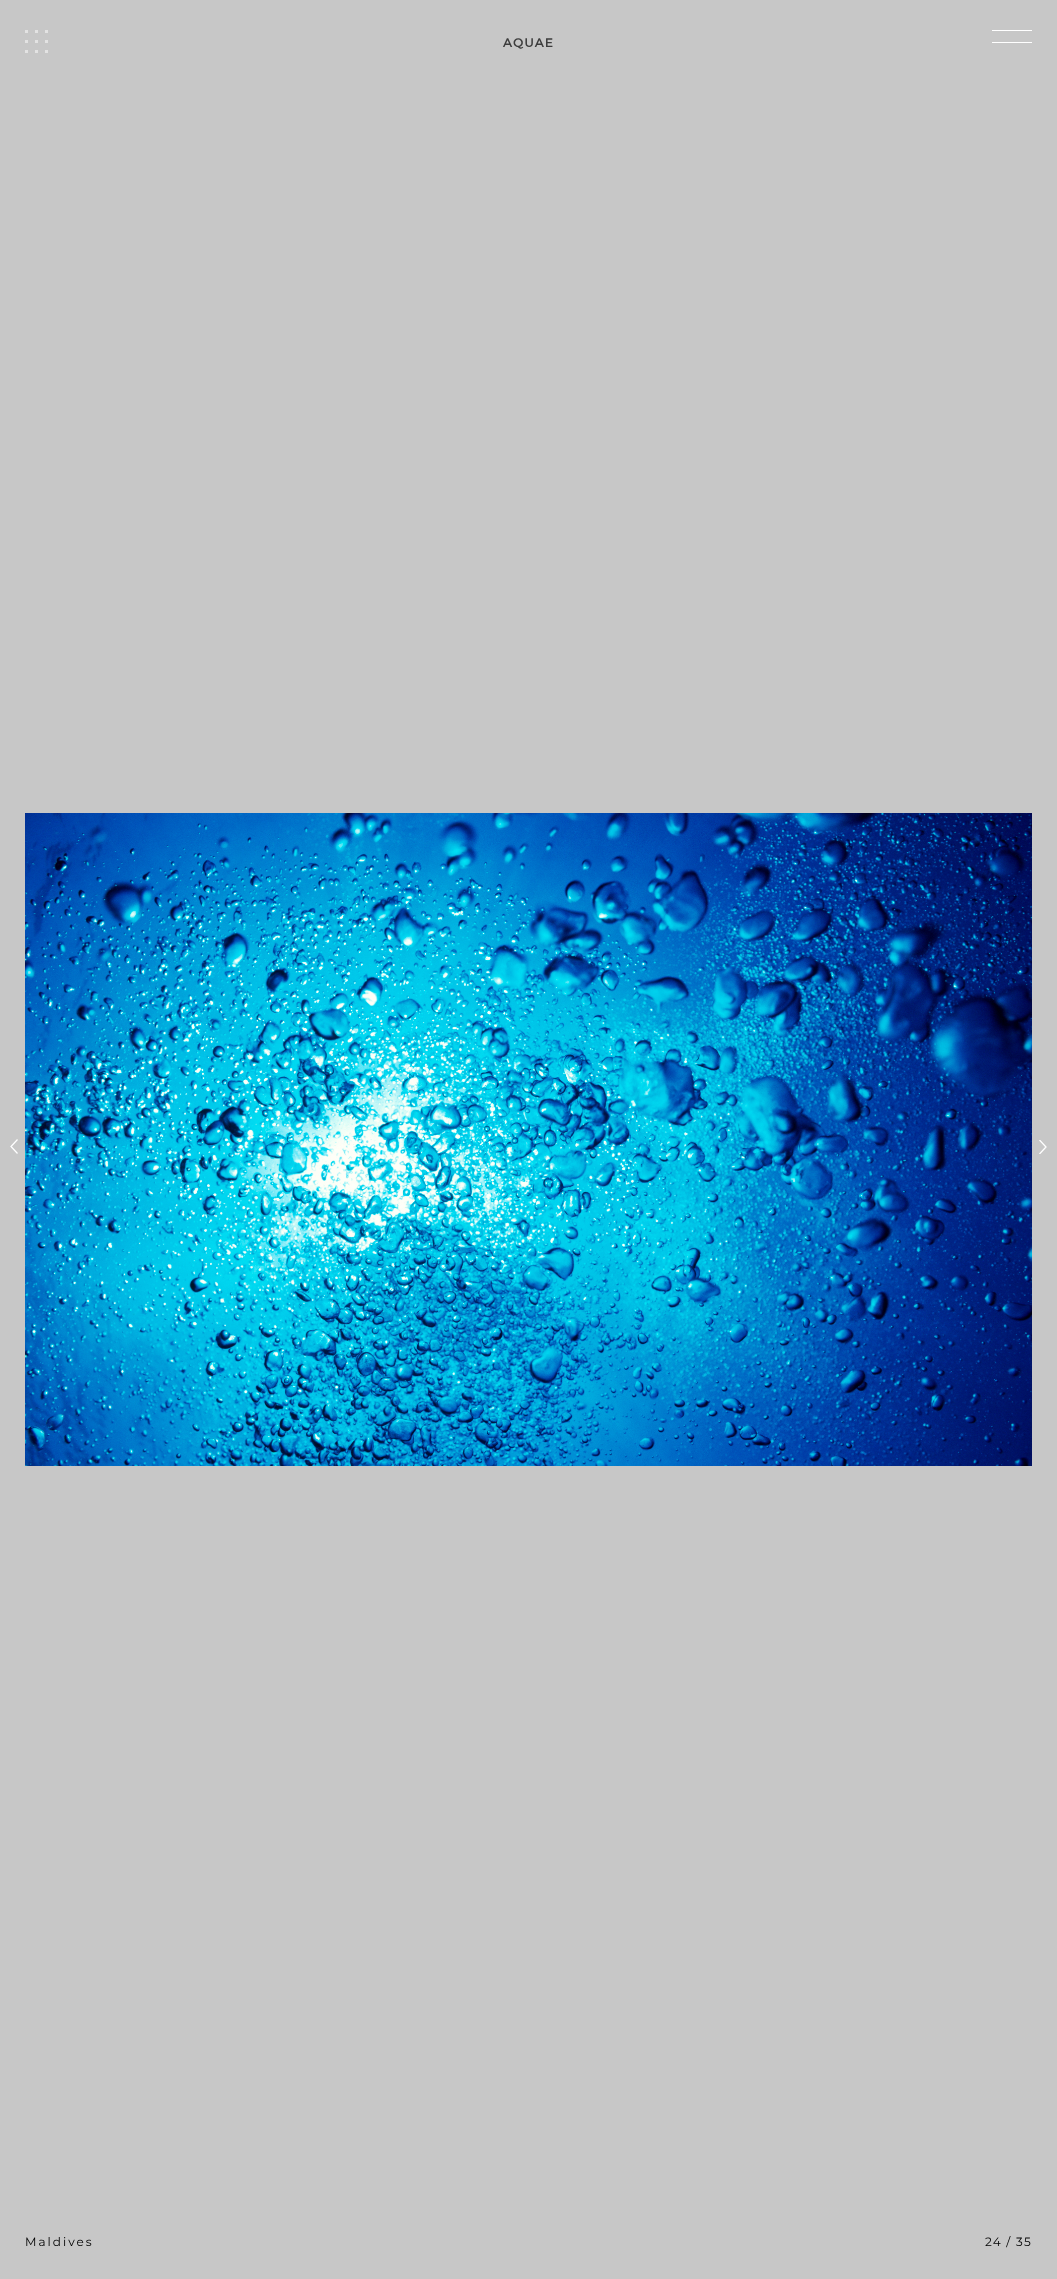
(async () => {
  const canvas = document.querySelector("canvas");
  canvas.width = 1057;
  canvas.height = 2279;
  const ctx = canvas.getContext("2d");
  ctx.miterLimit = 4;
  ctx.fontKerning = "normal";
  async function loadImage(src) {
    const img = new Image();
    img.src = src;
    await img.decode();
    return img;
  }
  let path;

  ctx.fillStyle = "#c7c7c7";
  ctx.fillRect(0, 0, 1057, 2279);
  ctx.fillStyle = "#ffffff";
  ctx.fillRect(992, 30, 40, 1);
  ctx.fillRect(992, 42, 40, 1);
  ctx.drawImage(await loadImage("img/1.png"), 25, 30, 23, 23);
  path = new Path2D("M17.5 1153.5L11 1146.5L17.5 1139.5");
  ctx.strokeStyle = "#ffffff";
  ctx.lineWidth = 1.3;
  ctx.stroke(path);
  ctx.drawImage(await loadImage("img/2.png"), 25, 813, 1007, 653);
  ctx.save();
  ctx.beginPath();
  ctx.rect(1039, 1140, 8, 14);
  ctx.clip();
  path = new Path2D("M1039.5 1140L1046 1147L1039.5 1154");
  ctx.stroke(path);
  ctx.restore();
  ctx.letterSpacing = "1.25px";
  ctx.font = "bold 12px Montserrat";
  ctx.fillStyle = "#3d3d3d";
  ctx.fillText("AQUAE", 503, 47);
  ctx.letterSpacing = "2px";
  ctx.font = "12px Montserrat";
  ctx.fillStyle = "#000000";
  ctx.fillText("Maldives", 25, 2246);
  ctx.letterSpacing = "1.25px";
  ctx.fillText("24 / 35", 985, 2246);
})();
